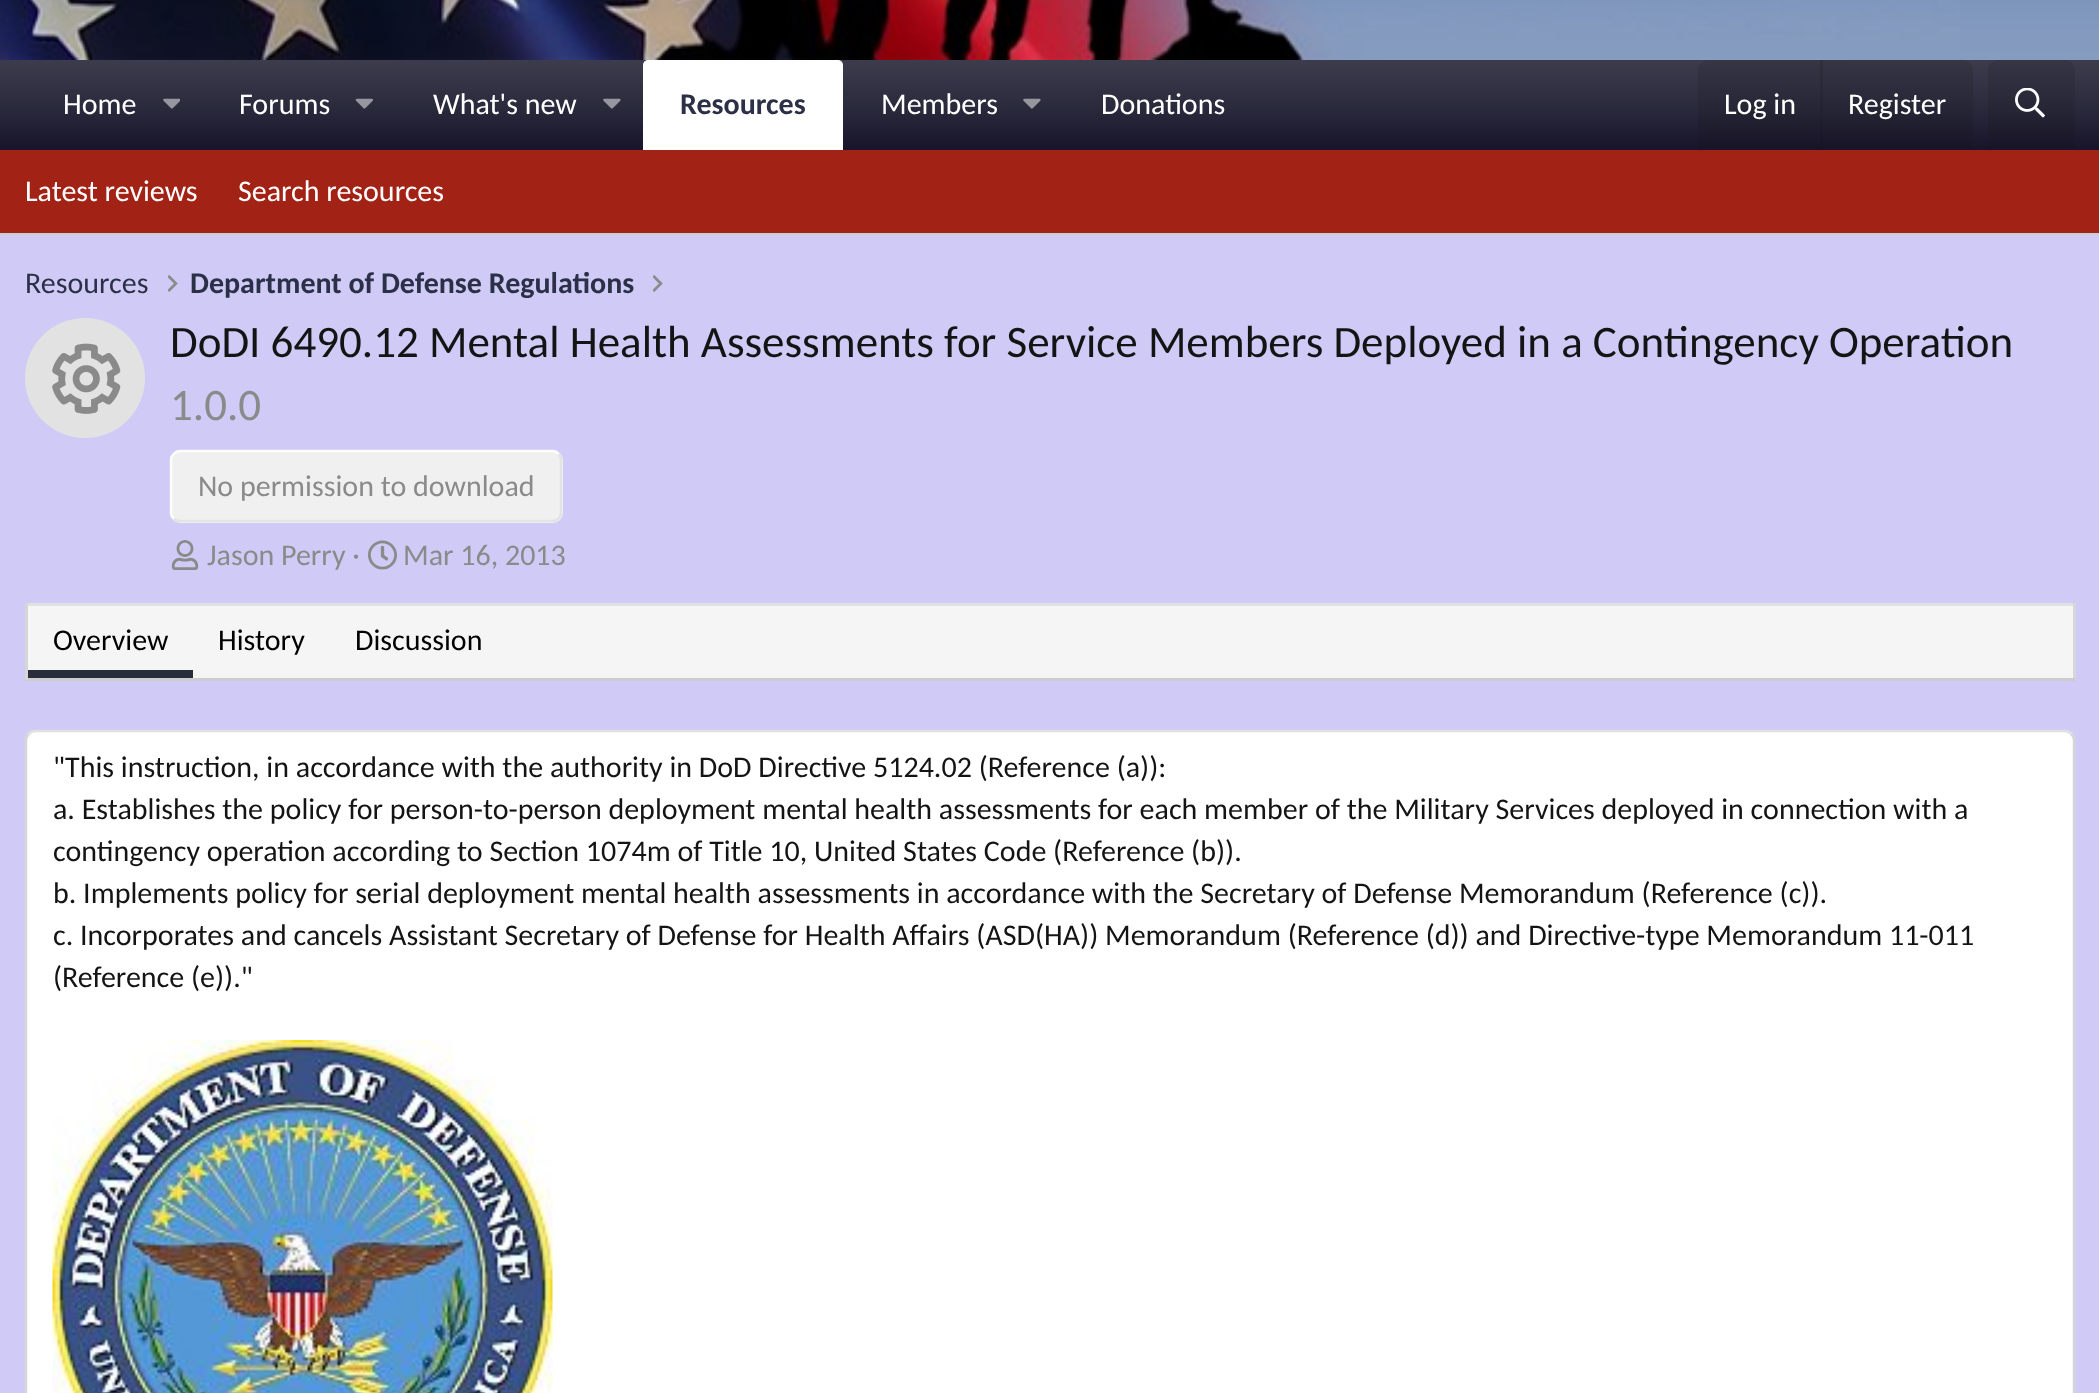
(async () => {
  const canvas = document.querySelector("canvas");
  canvas.width = 2099;
  canvas.height = 1393;
  const ctx = canvas.getContext("2d");
  ctx.miterLimit = 4;
  ctx.fontKerning = "normal";
  async function loadImage(src) {
    const img = new Image();
    img.src = src;
    await img.decode();
    return img;
  }
  let gradient, path;

  ctx.fillStyle = "#ffffff";
  ctx.fillRect(0, 0, 2099, 1393);
  ctx.drawImage(await loadImage("img/1.png"), 1849, 0, 250, 60);
  ctx.drawImage(await loadImage("img/2.png"), 0, 0, 1960, 60);
  gradient = ctx.createLinearGradient(1050, 60, 1050, 150);
  gradient.addColorStop(0, "#3c3c4d");
  gradient.addColorStop(0.5, "#2b2b3e");
  gradient.addColorStop(1, "#18142a");
  ctx.fillStyle = gradient;
  ctx.fillRect(0, 60, 2099, 90);
  ctx.drawImage(await loadImage("img/3.png"), 163, 98, 17, 11);
  ctx.drawImage(await loadImage("img/4.png"), 355, 98, 18, 11);
  ctx.drawImage(await loadImage("img/5.png"), 603, 98, 18, 11);
  ctx.fillStyle = "#ffffff";
  ctx.beginPath();
  ctx.roundRect(643, 60, 200, 90, [5, 5, 0, 0]);
  ctx.fill();
  ctx.drawImage(await loadImage("img/5.png"), 1023, 98, 18, 11);
  ctx.fillStyle = "rgba(20, 20, 20, 0.15)";
  ctx.beginPath();
  ctx.roundRect(1698, 60, 275, 90, [10, 10, 0, 0]);
  ctx.fill();
  ctx.fillRect(1820, 60, 3, 90);
  ctx.beginPath();
  ctx.roundRect(1988, 60, 87, 90, [10, 10, 0, 0]);
  ctx.fill();
  ctx.drawImage(await loadImage("img/6.png"), 2015, 88, 30, 30);
  for (const [x, y, w, h, color] of [
    [0, 150, 2099, 83, "#a22315"],
    [0, 233, 2099, 2, "#cccccc"],
    [0, 235, 2099, 1158, "#cfcaf6"],
  ]) {
    ctx.fillStyle = color;
    ctx.fillRect(x, y, w, h);
  }
  ctx.drawImage(await loadImage("img/7.png"), 168, 275, 10, 17);
  ctx.drawImage(await loadImage("img/7.png"), 653, 275, 10, 17);
  ctx.fillStyle = "#e2e2e2";
  ctx.beginPath();
  ctx.arc(85, 378, 60, 0, Math.PI * 2);
  ctx.fill();
  ctx.drawImage(await loadImage("img/8.png"), 52, 343, 69, 71);
  ctx.fillStyle = "#f0f0f0";
  ctx.beginPath();
  ctx.roundRect(170, 450, 393, 73, 10);
  ctx.fill();
  path = new Path2D("M558.5 454C560.5 455.5 561 457.5 561 460V512.5C561 515 560.5 517 558.5 518.5C557 520.5 555 521 552.5 521H180C177.5 521 175.5 520.5 174 518.5");
  ctx.strokeStyle = "#e3e3e3";
  ctx.lineWidth = 2.5;
  ctx.stroke(path);
  path = new Path2D("M174 518.5C172 517 171 515 171 512.5V460C171 457.5 172 455.5 174 454C175.5 452 177.5 451 180 451H552.5C555 451 557 452 558.5 454");
  ctx.strokeStyle = "#fcfcfc";
  ctx.stroke(path);
  ctx.drawImage(await loadImage("img/9.png"), 171, 540, 28, 30);
  ctx.drawImage(await loadImage("img/10.png"), 368, 540, 29, 30);
  for (const [x, y, w, h, color] of [
    [28, 606, 2045, 72, "#f5f5f5"],
    [25, 603, 2050, 3, "#e0e0e0"],
    [2073, 603, 3, 77, "#d6d6d6"],
    [25, 678, 2050, 3, "#cccccc"],
    [25, 603, 3, 77, "#d6d6d6"],
    [28, 670, 165, 8, "#2b2b3e"],
  ]) {
    ctx.fillStyle = color;
    ctx.fillRect(x, y, w, h);
  }
  ctx.fillStyle = "#ffffff";
  ctx.beginPath();
  ctx.roundRect(25, 730, 2050, 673, 10);
  ctx.fill();
  path = new Path2D("M29 734C30.5 732 32.5 731 35 731H2065C2067.5 731 2069.5 732 2071 734");
  ctx.strokeStyle = "#e0e0e0";
  ctx.stroke(path);
  path = new Path2D("M2071 734C2073 735.5 2074 737.5 2074 740V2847.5C2074 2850 2073 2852 2071 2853.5");
  ctx.strokeStyle = "#d6d6d6";
  ctx.stroke(path);
  path = new Path2D("M29 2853.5C27 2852 26 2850 26 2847.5V740C26 737.5 27 735.5 29 734");
  ctx.stroke(path);
  ctx.drawImage(await loadImage("img/11.png"), 52, 1040, 501, 353);
  ctx.font = "30px Carlito";
  for (const [text, x, y] of [
    ["Home", 63, 114],
    ["Forums", 239, 114],
    ["What's new", 433, 114],
  ]) {
    ctx.fillText(text, x, y);
  }
  ctx.font = "bold 30px Carlito";
  ctx.fillStyle = "#2b3047";
  ctx.fillText("Resources", 680, 114);
  ctx.font = "30px Carlito";
  ctx.fillStyle = "#ffffff";
  for (const [text, x, y] of [
    ["Members", 881, 114],
    ["Donations", 1101, 114],
    ["Log in", 1724, 114],
    ["Register", 1848, 114],
    ["Latest reviews", 25, 201],
    ["Search resources", 238, 201],
  ]) {
    ctx.fillText(text, x, y);
  }
  ctx.fillStyle = "#2b3047";
  ctx.fillText("Resources", 25, 293);
  ctx.font = "bold 30px Carlito";
  ctx.fillText("Department of Defense Regulations", 190, 293);
  ctx.font = "45px Carlito";
  ctx.fillStyle = "#141414";
  ctx.fillText("DoDI 6490.12 Mental Health Assessments for Service Members Deployed in a Contingency Operation", 170, 357);
  ctx.fillStyle = "#8a8a8a";
  ctx.fillText("1.0.0", 170, 420);
  ctx.font = "30px Carlito";
  for (const [text, x, y] of [
    ["No permission to download", 198, 496],
    ["Jason Perry ·", 207, 565],
    ["Mar 16, 2013", 403, 565],
  ]) {
    ctx.fillText(text, x, y);
  }
  ctx.fillStyle = "#000000";
  for (const [text, x, y] of [
    ["Overview", 53, 650],
    ["History", 218, 650],
    ["Discussion", 355, 650],
  ]) {
    ctx.fillText(text, x, y);
  }
  ctx.fillStyle = "#141414";
  for (const [text, x, y] of [
    ["\"This instruction, in accordance with the authority in DoD Directive 5124.02 (Reference (a)):", 53, 777],
    ["a. Establishes the policy for person-to-person deployment mental health assessments for each member of the Military Services deployed in connection with a", 53, 819],
    ["contingency operation according to Section 1074m of Title 10, United States Code (Reference (b)).", 53, 861],
    ["b. Implements policy for serial deployment mental health assessments in accordance with the Secretary of Defense Memorandum (Reference (c)).", 53, 903],
    ["c. Incorporates and cancels Assistant Secretary of Defense for Health Affairs (ASD(HA)) Memorandum (Reference (d)) and Directive-type Memorandum 11-011", 53, 945],
    ["(Reference (e)).\"", 53, 987],
  ]) {
    ctx.fillText(text, x, y);
  }
})();
